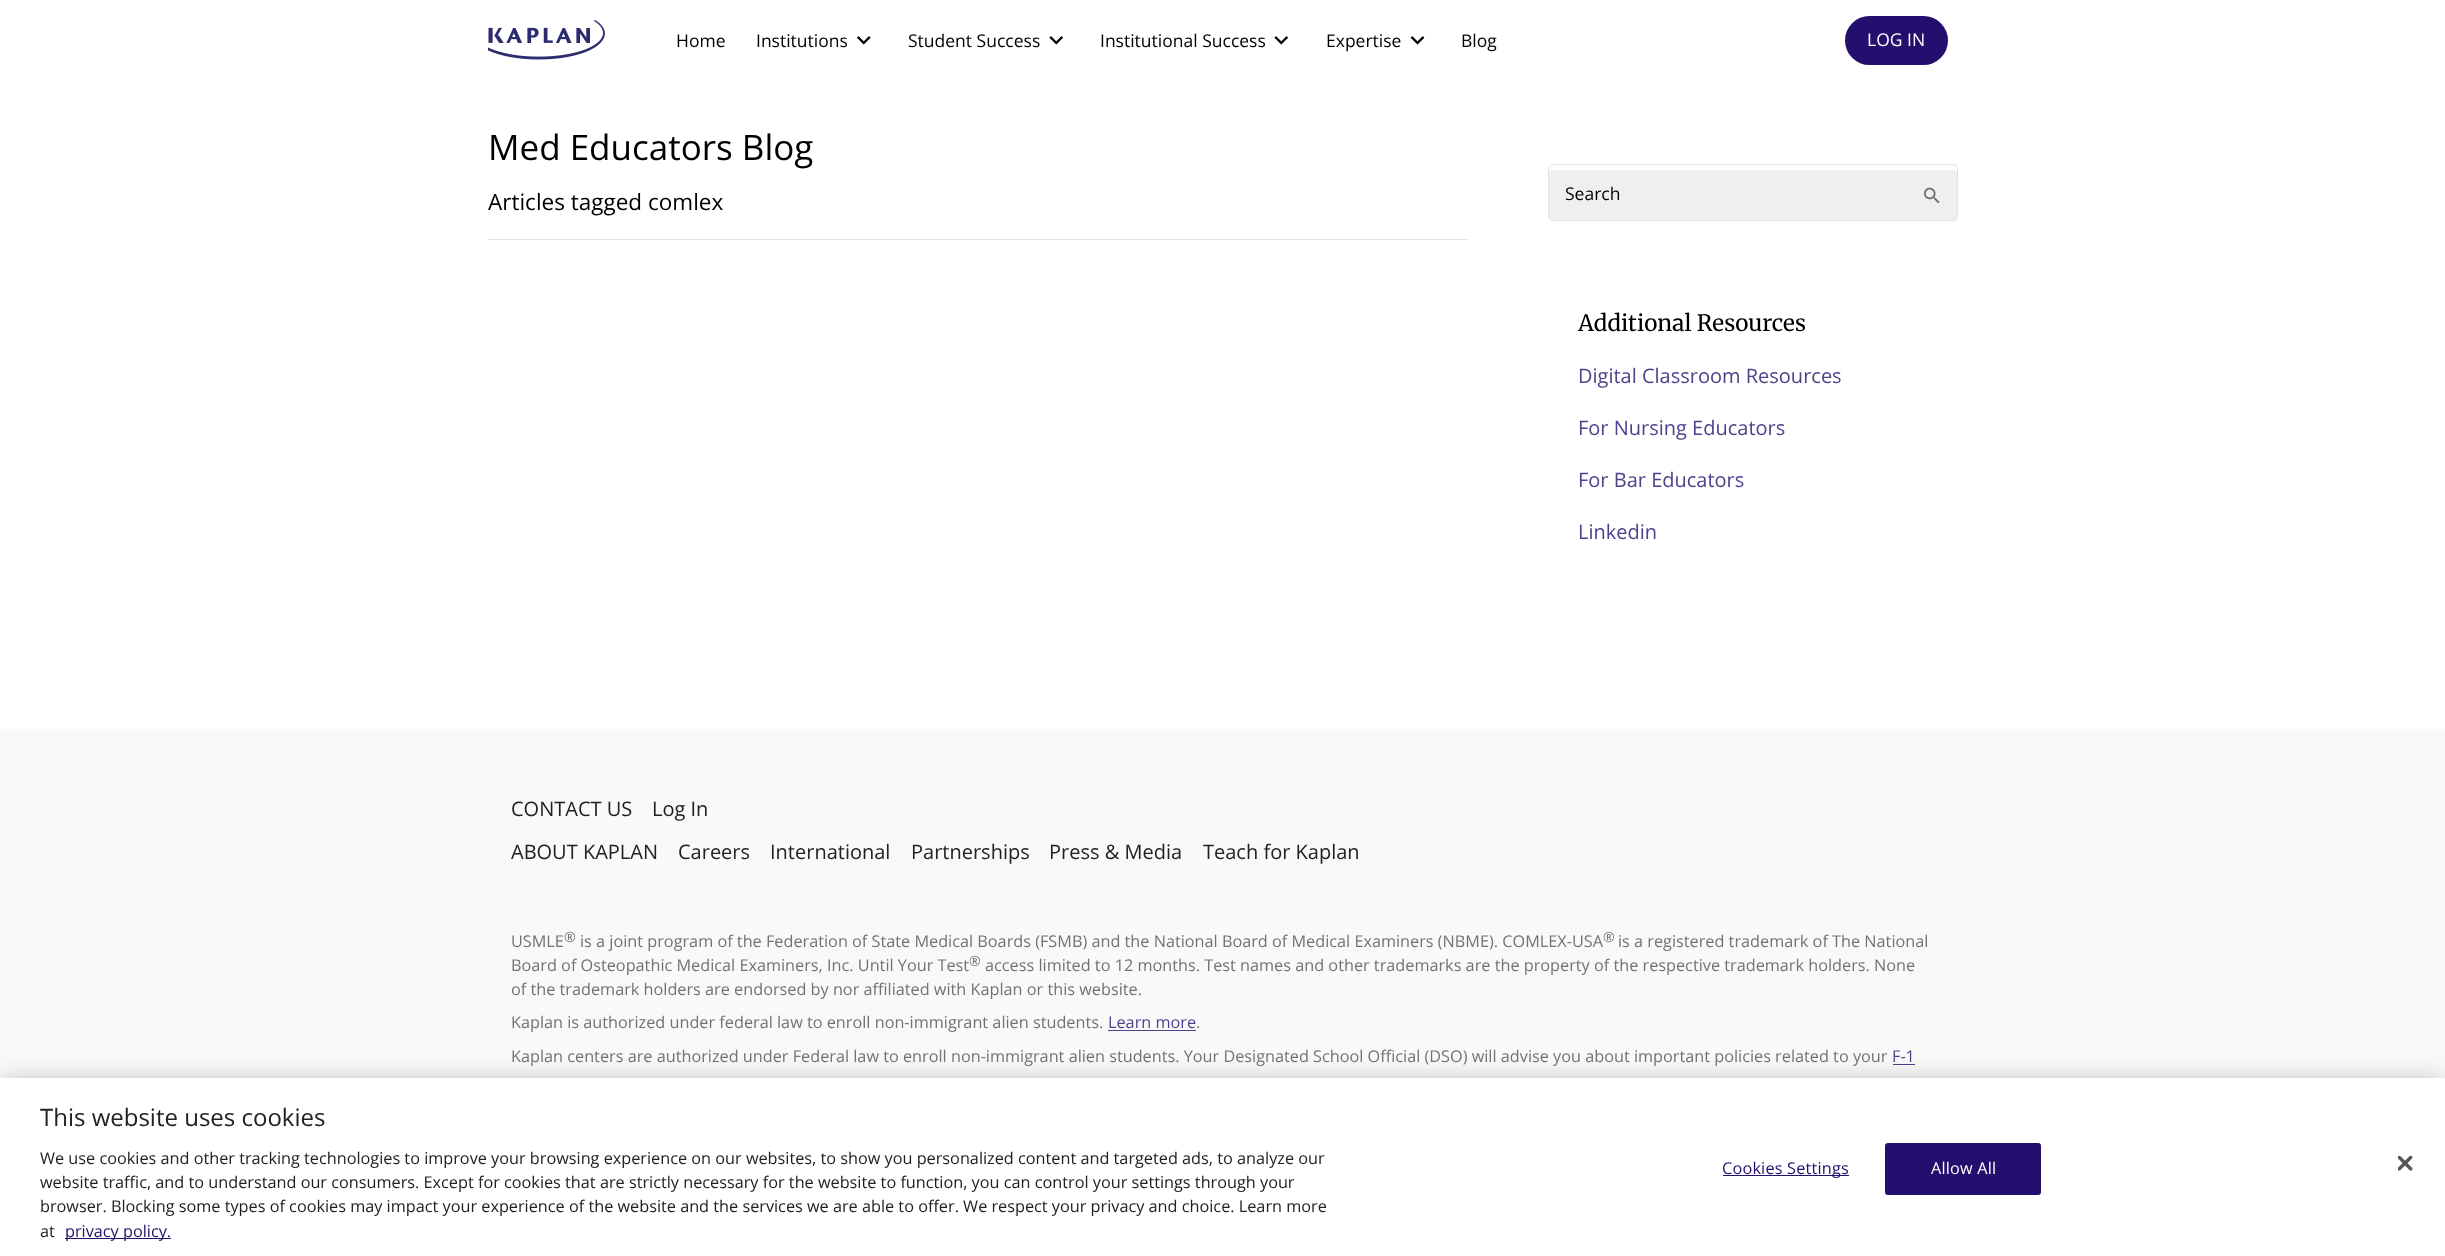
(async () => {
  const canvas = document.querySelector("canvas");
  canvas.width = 2445;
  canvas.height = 1256;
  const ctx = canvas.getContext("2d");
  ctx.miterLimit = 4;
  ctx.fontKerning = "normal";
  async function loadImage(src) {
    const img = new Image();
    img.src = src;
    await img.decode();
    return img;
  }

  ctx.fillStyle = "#ffffff";
  ctx.fillRect(0, 0, 2445, 1256);
  ctx.drawImage(await loadImage("img/1.png"), 488, 20, 117, 40);
  ctx.drawImage(await loadImage("img/2.png"), 857, 36, 14, 9);
  ctx.drawImage(await loadImage("img/3.png"), 1049, 36, 14, 9);
  ctx.drawImage(await loadImage("img/3.png"), 1274, 36, 14, 9);
  ctx.drawImage(await loadImage("img/4.png"), 1410, 36, 15, 9);
  ctx.fillStyle = "#240f6e";
  ctx.beginPath();
  ctx.roundRect(1845, 16, 103, 49, 24.5);
  ctx.fill();
  ctx.fillStyle = "#e5e3e1";
  ctx.fillRect(488, 239, 980, 1);
  ctx.fillStyle = "#efefef";
  ctx.beginPath();
  ctx.roundRect(1548, 170, 410, 51, 5);
  ctx.fill();
  ctx.drawImage(await loadImage("img/5.png"), 1923, 187, 17, 17);
  ctx.beginPath();
  ctx.roundRect(1548.5, 164.5, 409, 56, 4.5);
  ctx.strokeStyle = "#e5e3e1";
  ctx.stroke();
  for (const [x, y, w, h, color] of [
    [0, 729, 2445, 349, "#f9f9f9"],
    [1108, 1030, 88, 1, "#503f8b"],
    [1893, 1064, 22, 1, "#503f8b"],
  ]) {
    ctx.fillStyle = color;
    ctx.fillRect(x, y, w, h);
  }
  ctx.fillStyle = "rgba(0, 0, 0, 0.2)";
  ctx.filter = "blur(11px)";
  ctx.beginPath();
  ctx.rect(0, 1078, 2445, 178);
  ctx.fill();
  ctx.filter = "none";
  for (const [x, y, w, h, color] of [
    [0, 1078, 2445, 178, "#ffffff"],
    [65, 1238, 106, 1, "#240f6e"],
    [1723, 1175, 126, 1, "#240f6e"],
  ]) {
    ctx.fillStyle = color;
    ctx.fillRect(x, y, w, h);
  }
  ctx.beginPath();
  ctx.roundRect(1885.5, 1143.5, 155, 51, 2);
  ctx.fill();
  ctx.strokeStyle = "#240f6e";
  ctx.stroke();
  ctx.drawImage(await loadImage("img/6.png"), 2398, 1156, 15, 15);
  ctx.font = "17.5px Open Sans";
  ctx.fillStyle = "#000000";
  for (const [text, x, y] of [
    ["Home", 676, 47],
    ["Institutions", 756, 47],
    ["Student Success", 908, 47],
    ["Institutional Success", 1100, 47],
    ["Expertise", 1326, 47],
    ["Blog", 1461, 47],
  ]) {
    ctx.fillText(text, x, y);
  }
  ctx.fillStyle = "#ffffff";
  ctx.fillText("LOG IN", 1867, 46);
  ctx.font = "35px Open Sans";
  ctx.fillStyle = "#000000";
  ctx.fillText("Med Educators Blog", 488, 160);
  ctx.font = "22.5px Open Sans";
  ctx.fillText("Articles tagged comlex", 488, 210);
  ctx.font = "17.5px Open Sans";
  ctx.fillText("Search", 1565, 200);
  ctx.font = "22.5px Merriweather";
  ctx.fillText("Additional Resources", 1578, 331);
  ctx.font = "20px Open Sans";
  ctx.fillStyle = "#503f8b";
  for (const [text, x, y] of [
    ["Digital Classroom Resources", 1578, 383],
    ["For Nursing Educators", 1578, 435],
    ["For Bar Educators", 1578, 487],
    ["Linkedin", 1578, 539],
  ]) {
    ctx.fillText(text, x, y);
  }
  ctx.fillStyle = "#222121";
  for (const [text, x, y] of [
    ["CONTACT US", 511, 816],
    ["Log In", 652, 816],
    ["ABOUT KAPLAN", 511, 859],
    ["Careers", 678, 859],
    ["International", 770, 859],
    ["Partnerships", 911, 859],
    ["Press & Media", 1049, 859],
    ["Teach for Kaplan", 1203, 859],
  ]) {
    ctx.fillText(text, x, y);
  }
  ctx.font = "16.25px Open Sans";
  ctx.fillStyle = "#727272";
  ctx.fillText("USMLE", 511, 947);
  ctx.font = "14px Open Sans";
  ctx.fillText("®", 564, 942);
  ctx.font = "16.25px Open Sans";
  ctx.fillText("is a joint program of the Federation of State Medical Boards (FSMB) and the National Board of Medical Examiners (NBME). COMLEX-USA", 580, 947);
  ctx.font = "14px Open Sans";
  ctx.fillText("®", 1603, 942);
  ctx.font = "16.25px Open Sans";
  ctx.fillText("is a registered trademark of The National", 1618, 947);
  ctx.fillText("Board of Osteopathic Medical Examiners, Inc. Until Your Test", 511, 971);
  ctx.font = "14px Open Sans";
  ctx.fillText("®", 969, 966);
  ctx.font = "16.25px Open Sans";
  for (const [text, x, y] of [
    ["access limited to 12 months. Test names and other trademarks are the property of the respective trademark holders. None", 985, 971],
    ["of the trademark holders are endorsed by nor affiliated with Kaplan or this website.", 511, 995],
    ["Kaplan is authorized under federal law to enroll non-immigrant alien students.", 511, 1028],
  ]) {
    ctx.fillText(text, x, y);
  }
  ctx.fillStyle = "#503f8b";
  ctx.fillText("Learn more", 1108, 1028);
  ctx.fillStyle = "#727272";
  ctx.fillText(".", 1196, 1028);
  ctx.fillText("Kaplan centers are authorized under Federal law to enroll non-immigrant alien students. Your Designated School Official (DSO) will advise you about important policies related to your", 511, 1062);
  ctx.fillStyle = "#503f8b";
  ctx.fillText("F-1", 1892, 1062);
  ctx.font = "24px Open Sans";
  ctx.fillStyle = "#222121";
  ctx.fillText("This website uses cookies", 40, 1126);
  ctx.font = "16.25px Open Sans";
  for (const [text, x, y] of [
    ["We use cookies and other tracking technologies to improve your browsing experience on our websites, to show you personalized content and targeted ads, to analyze our", 40, 1164],
    ["website traffic, and to understand our consumers. Except for cookies that are strictly necessary for the website to function, you can control your settings through your", 40, 1188],
    ["browser. Blocking some types of cookies may impact your experience of the website and the services we are able to offer. We respect your privacy and choice. Learn more", 40, 1212],
    ["at", 40, 1237],
  ]) {
    ctx.fillText(text, x, y);
  }
  ctx.fillStyle = "#240f6e";
  ctx.fillText("privacy policy.", 65, 1237);
  ctx.letterSpacing = "0.2px";
  ctx.fillText("Cookies Settings", 1722, 1174);
  ctx.fillStyle = "#ffffff";
  ctx.fillText("Allow All", 1931, 1174);
})();
